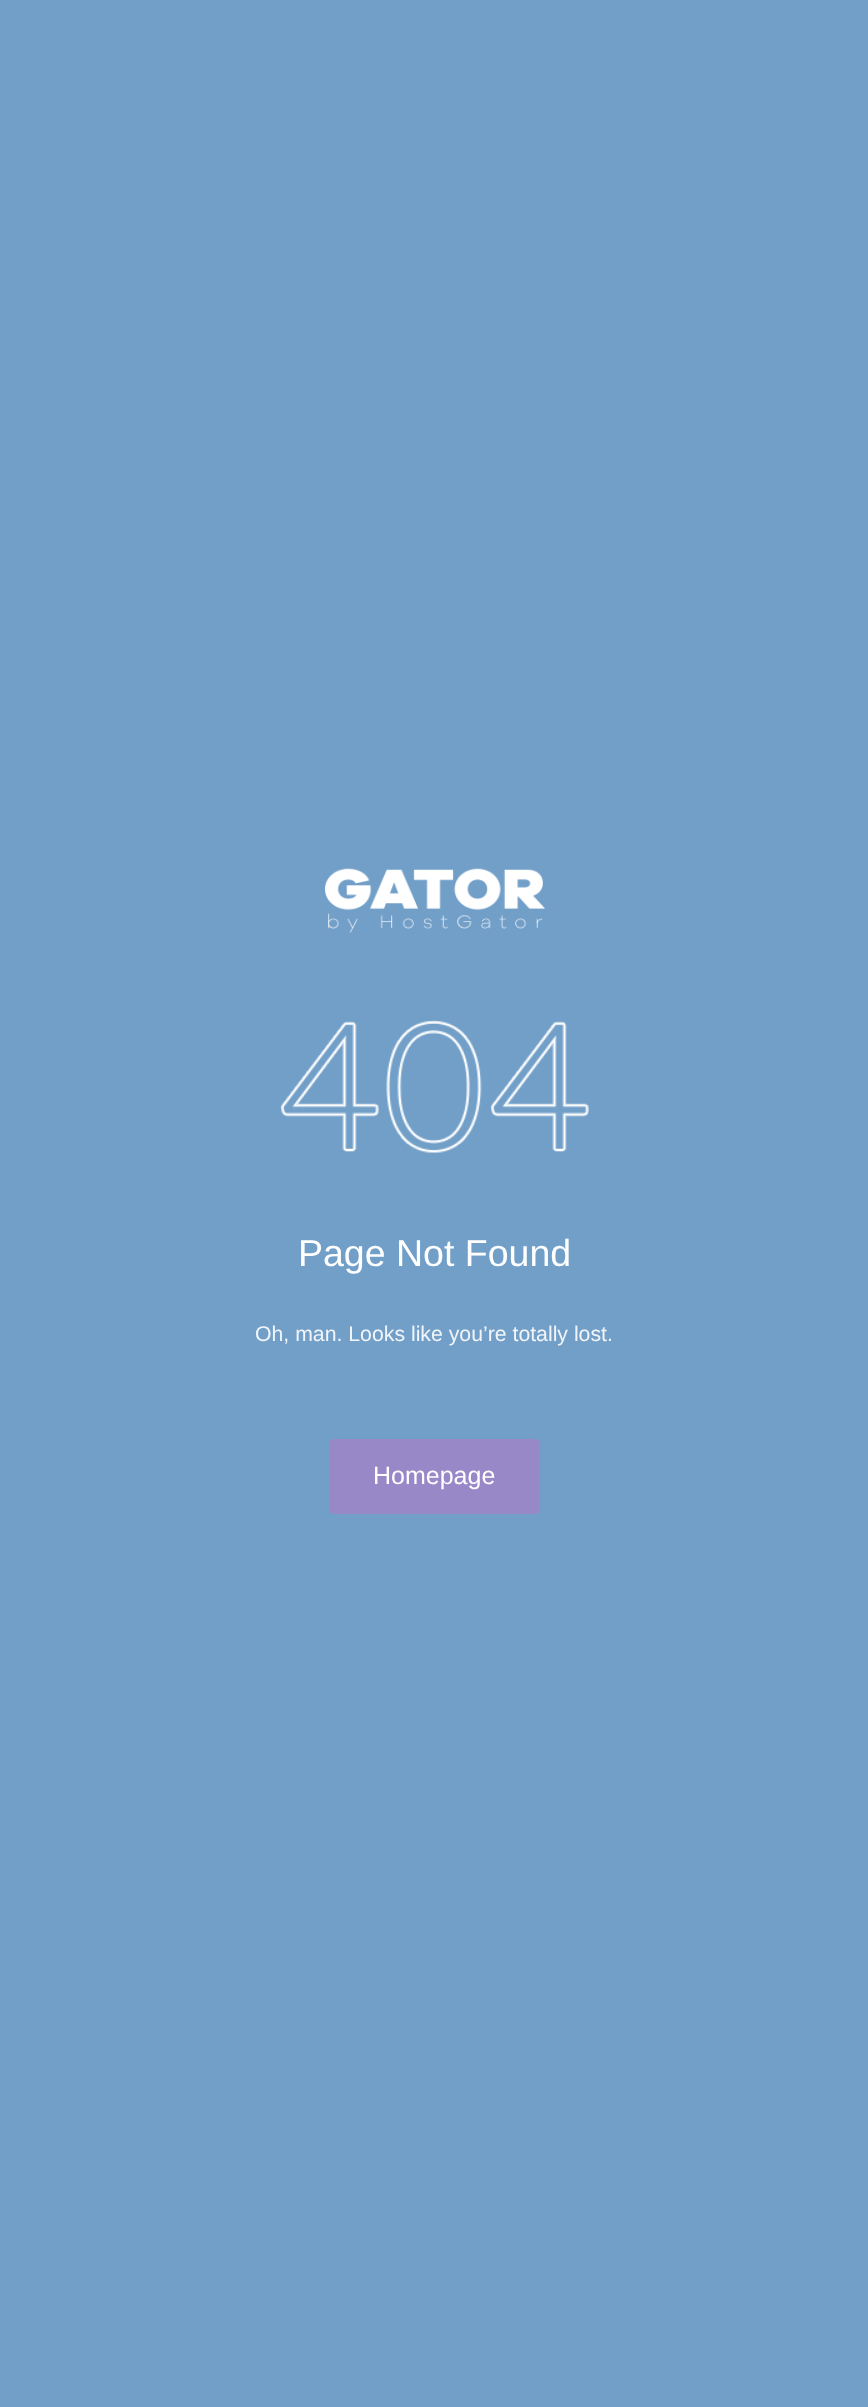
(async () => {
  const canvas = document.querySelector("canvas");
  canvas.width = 868;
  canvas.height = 2407;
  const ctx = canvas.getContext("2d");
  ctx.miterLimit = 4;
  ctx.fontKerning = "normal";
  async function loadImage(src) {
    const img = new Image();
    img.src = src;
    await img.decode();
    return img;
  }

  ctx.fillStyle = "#729fc8";
  ctx.fillRect(0, 0, 868, 2407);
  ctx.drawImage(await loadImage("img/1.png"), 325, 868, 220, 65);
  ctx.drawImage(await loadImage("img/2.png"), 280, 1020, 309, 133);
  ctx.fillStyle = "#9988c8";
  ctx.beginPath();
  ctx.roundRect(329, 1439, 211, 75, 5);
  ctx.fill();
  ctx.font = "37.5px Liberation Sans";
  ctx.fillStyle = "#ffffff";
  ctx.fillText("Page Not Found", 298, 1266);
  ctx.font = "21.25px Liberation Sans";
  ctx.fillStyle = "#f1f5fa";
  ctx.fillText("Oh, man. Looks like you’re totally lost.", 255, 1341);
  ctx.font = "25px Liberation Sans";
  ctx.fillStyle = "#ffffff";
  ctx.fillText("Homepage", 373, 1484);
})();
